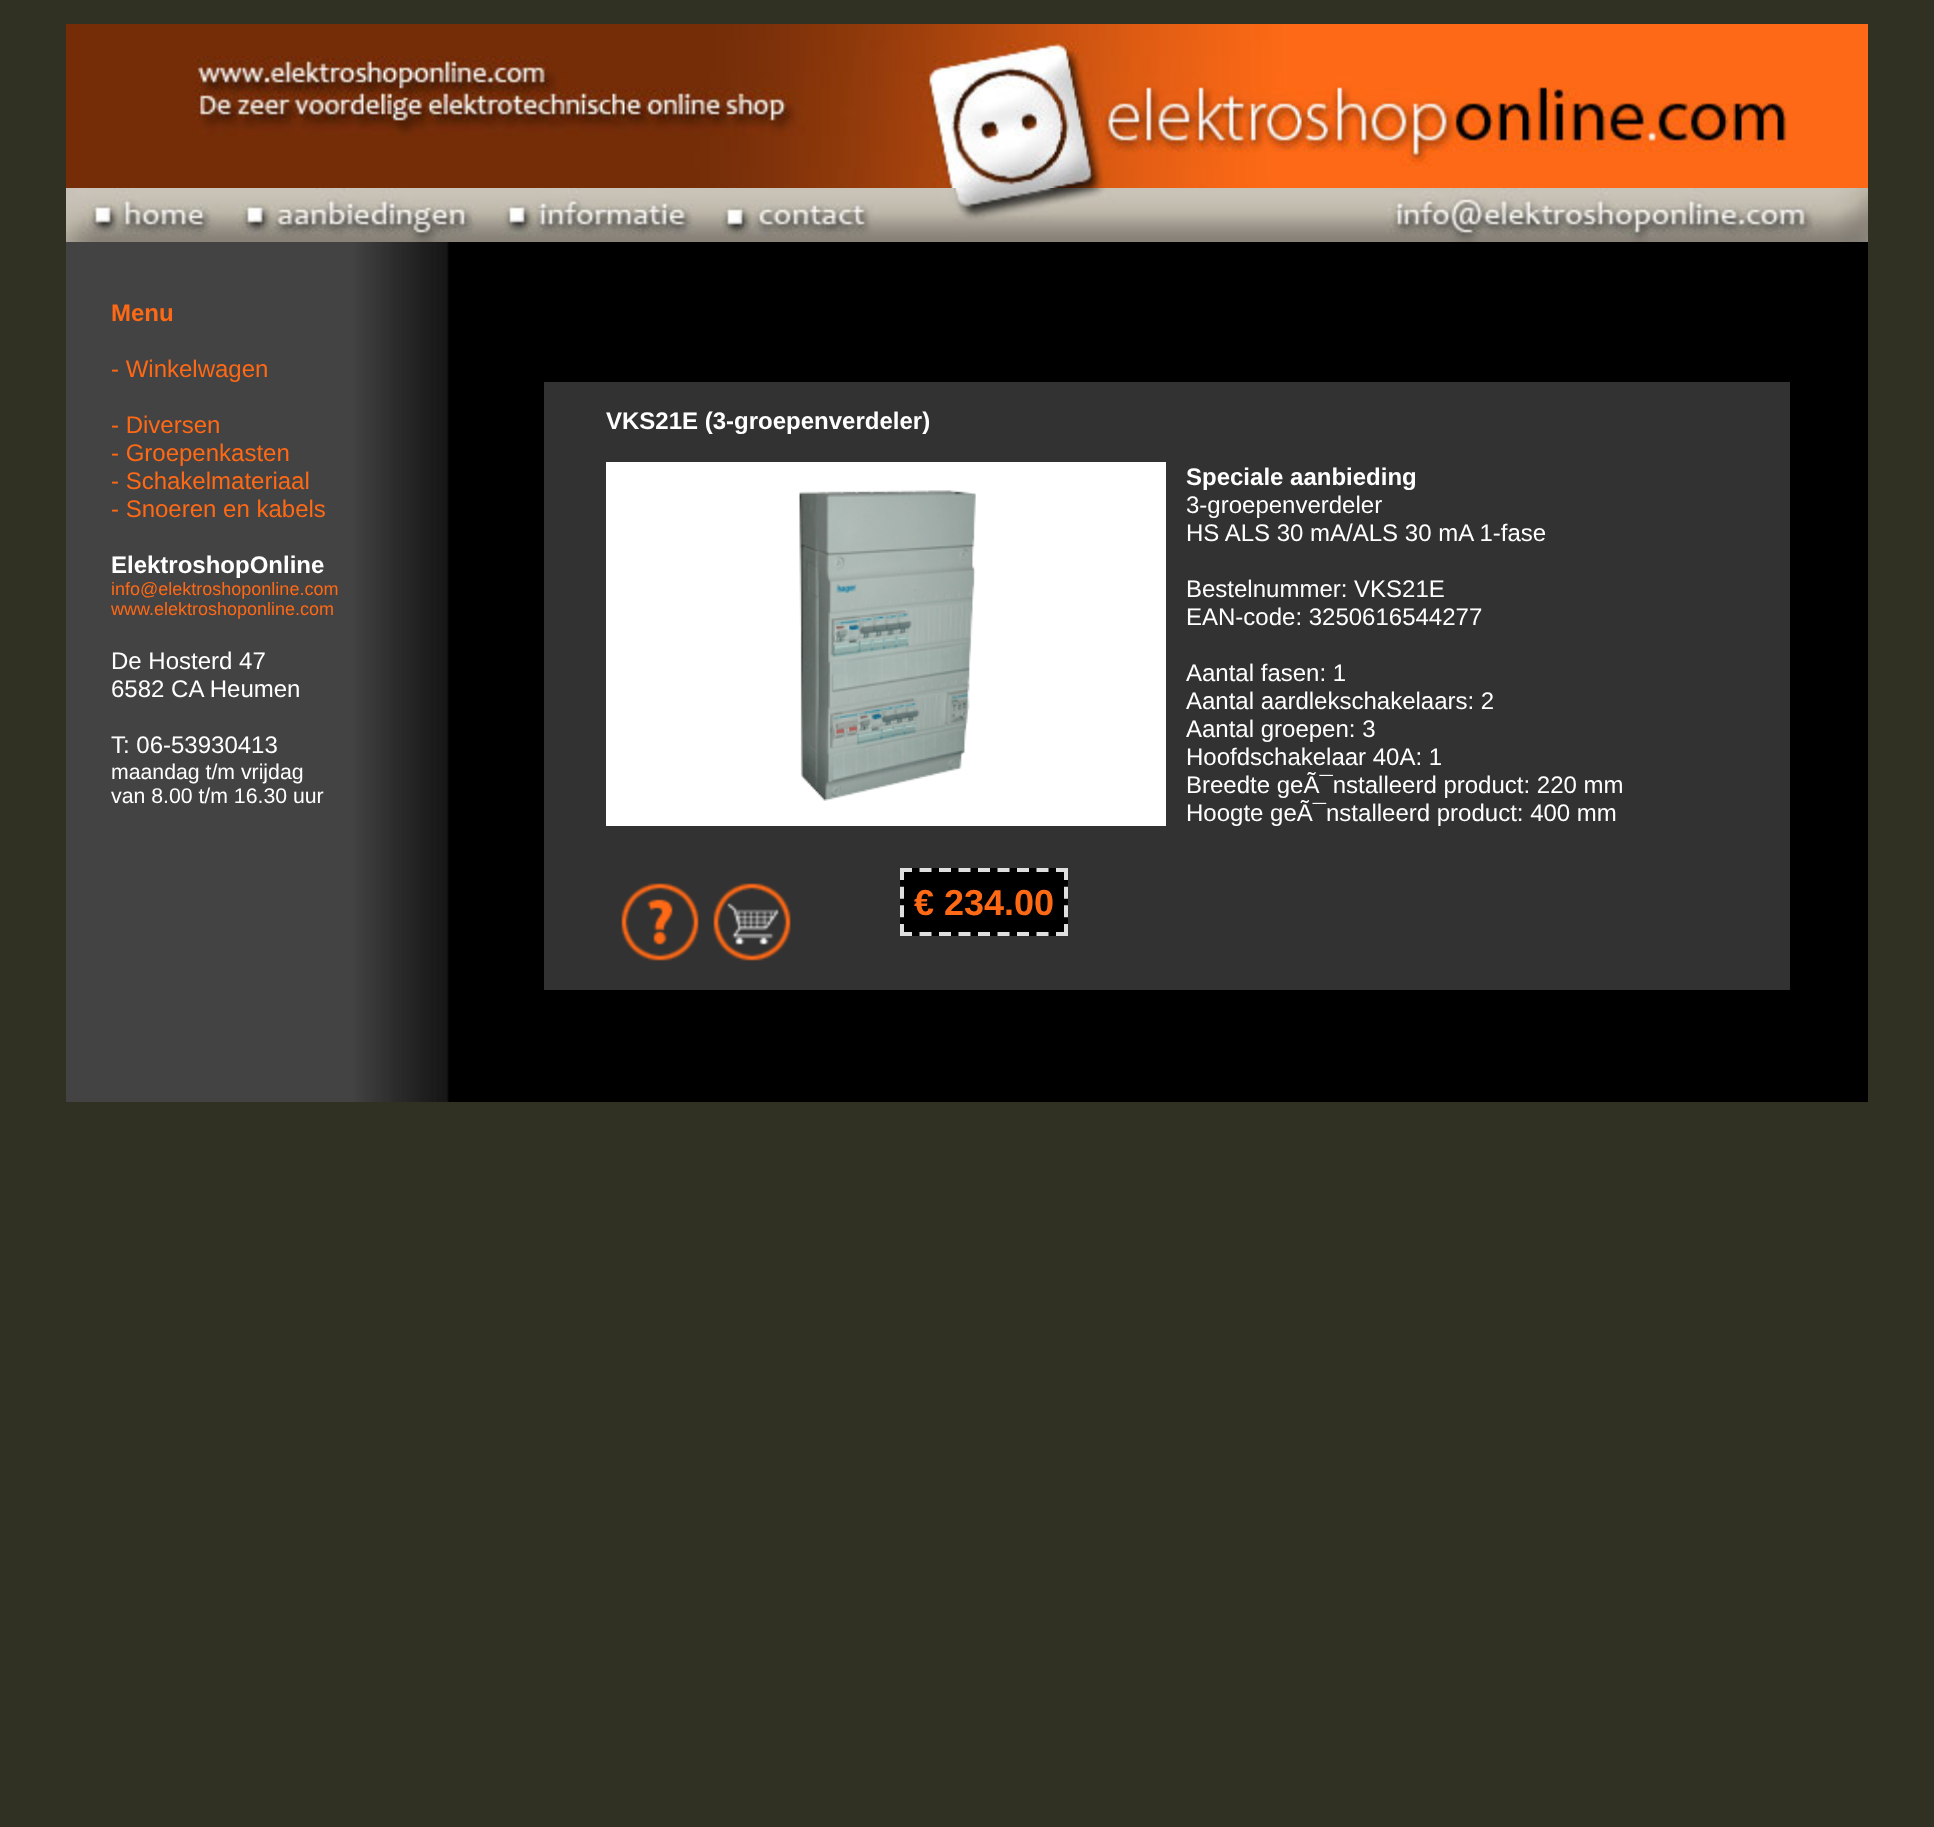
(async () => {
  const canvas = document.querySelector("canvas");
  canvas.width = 1934;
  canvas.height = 1827;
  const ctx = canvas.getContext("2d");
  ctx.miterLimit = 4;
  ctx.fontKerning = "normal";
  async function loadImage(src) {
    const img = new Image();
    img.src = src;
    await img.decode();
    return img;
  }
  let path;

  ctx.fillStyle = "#303123";
  ctx.fillRect(0, 0, 1934, 1827);
  ctx.fillStyle = "#000000";
  ctx.fillRect(449, 242, 1419, 860);
  ctx.drawImage(await loadImage("img/1.png"), 66, 24, 1802, 164);
  ctx.drawImage(await loadImage("img/2.png"), 66, 188, 154, 54);
  ctx.drawImage(await loadImage("img/3.png"), 220, 188, 266, 54);
  ctx.drawImage(await loadImage("img/4.png"), 486, 188, 218, 54);
  ctx.drawImage(await loadImage("img/5.png"), 704, 188, 186, 54);
  ctx.drawImage(await loadImage("img/6.png"), 890, 188, 978, 54);
  ctx.drawImage(await loadImage("img/7.png"), 66, 242, 383, 860);
  ctx.fillStyle = "#323232";
  ctx.fillRect(544, 382, 1246, 608);
  ctx.fillStyle = "#ffffff";
  ctx.fillRect(606, 462, 560, 364);
  ctx.drawImage(await loadImage("img/8.png"), 799, 490, 177, 311);
  ctx.drawImage(await loadImage("img/9.png"), 621, 883, 78, 78);
  ctx.drawImage(await loadImage("img/10.png"), 713, 883, 78, 78);
  ctx.fillStyle = "#000000";
  ctx.fillRect(900, 868, 168, 68);
  path = new Path2D("M900 870H1068");
  ctx.strokeStyle = "#dfdfdf";
  ctx.lineWidth = 4;
  ctx.setLineDash([12, 7.5]);
  ctx.stroke(path);
  path = new Path2D("M1066 868V936");
  ctx.setLineDash([12, 6.66]);
  ctx.stroke(path);
  path = new Path2D("M900 934H1068");
  ctx.setLineDash([12, 7.5]);
  ctx.stroke(path);
  path = new Path2D("M902 868V936");
  ctx.setLineDash([12, 6.66]);
  ctx.stroke(path);
  ctx.font = "bold 24px Liberation Sans";
  ctx.fillStyle = "#fe6916";
  ctx.fillText("Menu", 111, 321);
  ctx.font = "24px Liberation Sans";
  for (const [text, x, y] of [
    ["- Winkelwagen", 111, 377],
    ["- Diversen", 111, 433],
    ["- Groepenkasten", 111, 461],
    ["- Schakelmateriaal", 111, 489],
    ["- Snoeren en kabels", 111, 517],
  ]) {
    ctx.fillText(text, x, y);
  }
  ctx.font = "bold 24px Liberation Sans";
  ctx.fillStyle = "#ffffff";
  ctx.fillText("ElektroshopOnline", 111, 573);
  ctx.font = "18px Liberation Sans";
  ctx.fillStyle = "#fe6916";
  ctx.fillText("info@elektroshoponline.com", 111, 595);
  ctx.fillText("www.elektroshoponline.com", 111, 615);
  ctx.font = "24px Liberation Sans";
  ctx.fillStyle = "#ffffff";
  for (const [text, x, y] of [
    ["De Hosterd 47", 111, 669],
    ["6582 CA Heumen", 111, 697],
    ["T: 06-53930413", 111, 753],
  ]) {
    ctx.fillText(text, x, y);
  }
  ctx.font = "21.25px Liberation Sans";
  ctx.fillText("maandag t/m vrijdag", 111, 779);
  ctx.fillText("van 8.00 t/m 16.30 uur", 111, 803);
  ctx.font = "bold 24px Liberation Sans";
  ctx.fillText("VKS21E (3-groepenverdeler)", 606, 429);
  ctx.fillText("Speciale aanbieding", 1186, 485);
  ctx.font = "24px Liberation Sans";
  for (const [text, x, y] of [
    ["3-groepenverdeler", 1186, 513],
    ["HS ALS 30 mA/ALS 30 mA 1-fase", 1186, 541],
    ["Bestelnummer: VKS21E", 1186, 597],
    ["EAN-code: 3250616544277", 1186, 625],
    ["Aantal fasen: 1", 1186, 681],
    ["Aantal aardlekschakelaars: 2", 1186, 709],
    ["Aantal groepen: 3", 1186, 737],
    ["Hoofdschakelaar 40A: 1", 1186, 765],
    ["Breedte geÃ¯nstalleerd product: 220 mm", 1186, 793],
    ["Hoogte geÃ¯nstalleerd product: 400 mm", 1186, 821],
  ]) {
    ctx.fillText(text, x, y);
  }
  ctx.font = "bold 36px Liberation Sans";
  ctx.fillStyle = "#fe6916";
  ctx.fillText("€ 234.00", 914, 915);
})();
